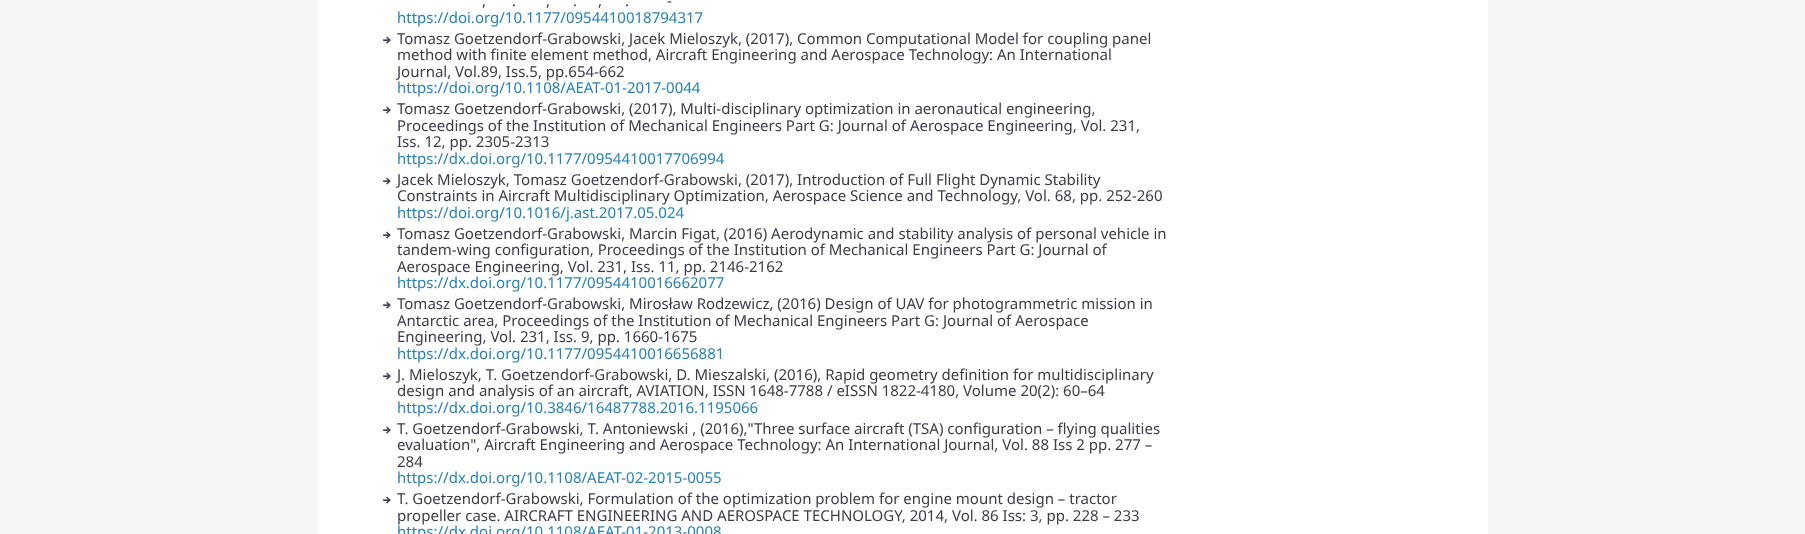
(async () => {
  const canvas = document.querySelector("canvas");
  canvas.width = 1805;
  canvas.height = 534;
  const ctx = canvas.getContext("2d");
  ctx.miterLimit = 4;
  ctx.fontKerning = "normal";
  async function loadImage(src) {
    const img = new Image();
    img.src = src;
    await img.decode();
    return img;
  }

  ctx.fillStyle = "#f7f5f6";
  ctx.fillRect(0, 0, 1805, 534);
  ctx.fillStyle = "#ffffff";
  ctx.fillRect(318, 0, 1170, 534);
  ctx.drawImage(await loadImage("img/1.png"), 383, 36, 8, 8);
  ctx.drawImage(await loadImage("img/1.png"), 383, 106, 8, 8);
  ctx.drawImage(await loadImage("img/1.png"), 383, 177, 8, 8);
  ctx.drawImage(await loadImage("img/1.png"), 383, 231, 8, 8);
  ctx.drawImage(await loadImage("img/1.png"), 383, 301, 8, 8);
  ctx.drawImage(await loadImage("img/1.png"), 383, 372, 8, 8);
  ctx.drawImage(await loadImage("img/1.png"), 383, 426, 8, 8);
  ctx.drawImage(await loadImage("img/1.png"), 383, 496, 8, 8);
  ctx.font = "15px Noto Sans";
  ctx.fillStyle = "#3c3c4c";
  for (const [text, x, y] of [
    ["-", 667, 6],
    [",", 482, 6],
    [".", 512, 6],
    [",", 546, 6],
    [".", 573, 6],
    [",", 598, 6],
    [".", 625, 6],
  ]) {
    ctx.fillText(text, x, y);
  }
  ctx.fillStyle = "#2782b6";
  ctx.fillText("https://doi.org/10.1177/0954410018794317", 397, 23);
  ctx.fillStyle = "#3c3c4c";
  for (const [text, x, y] of [
    ["Tomasz Goetzendorf-Grabowski, Jacek Mieloszyk, (2017), Common Computational Model for coupling panel", 397, 44],
    ["method with finite element method, Aircraft Engineering and Aerospace Technology: An International", 397, 60],
    ["Journal, Vol.89, Iss.5, pp.654-662", 397, 77],
  ]) {
    ctx.fillText(text, x, y);
  }
  ctx.fillStyle = "#2782b6";
  ctx.fillText("https://doi.org/10.1108/AEAT-01-2017-0044", 397, 93);
  ctx.fillStyle = "#3c3c4c";
  for (const [text, x, y] of [
    ["Tomasz Goetzendorf-Grabowski, (2017), Multi-disciplinary optimization in aeronautical engineering,", 397, 114],
    ["Proceedings of the Institution of Mechanical Engineers Part G: Journal of Aerospace Engineering, Vol. 231,", 397, 131],
    ["Iss. 12, pp. 2305-2313", 397, 147],
  ]) {
    ctx.fillText(text, x, y);
  }
  ctx.fillStyle = "#2782b6";
  ctx.fillText("https://dx.doi.org/10.1177/0954410017706994", 397, 164);
  ctx.fillStyle = "#3c3c4c";
  ctx.fillText("Jacek Mieloszyk, Tomasz Goetzendorf-Grabowski, (2017), Introduction of Full Flight Dynamic Stability", 397, 185);
  ctx.fillText("Constraints in Aircraft Multidisciplinary Optimization, Aerospace Science and Technology, Vol. 68, pp. 252-260", 397, 201);
  ctx.fillStyle = "#2782b6";
  ctx.fillText("https://doi.org/10.1016/j.ast.2017.05.024", 397, 218);
  ctx.fillStyle = "#3c3c4c";
  for (const [text, x, y] of [
    ["Tomasz Goetzendorf-Grabowski, Marcin Figat, (2016) Aerodynamic and stability analysis of personal vehicle in", 397, 239],
    ["tandem-wing configuration, Proceedings of the Institution of Mechanical Engineers Part G: Journal of", 397, 255],
    ["Aerospace Engineering, Vol. 231, Iss. 11, pp. 2146-2162", 397, 272],
  ]) {
    ctx.fillText(text, x, y);
  }
  ctx.fillStyle = "#2782b6";
  ctx.fillText("https://dx.doi.org/10.1177/0954410016662077", 397, 288);
  ctx.fillStyle = "#3c3c4c";
  for (const [text, x, y] of [
    ["Tomasz Goetzendorf-Grabowski, Mirosław Rodzewicz, (2016) Design of UAV for photogrammetric mission in", 397, 309],
    ["Antarctic area, Proceedings of the Institution of Mechanical Engineers Part G: Journal of Aerospace", 397, 326],
    ["Engineering, Vol. 231, Iss. 9, pp. 1660-1675", 397, 342],
  ]) {
    ctx.fillText(text, x, y);
  }
  ctx.fillStyle = "#2782b6";
  ctx.fillText("https://dx.doi.org/10.1177/0954410016656881", 397, 359);
  ctx.fillStyle = "#3c3c4c";
  ctx.fillText("J. Mieloszyk, T. Goetzendorf-Grabowski, D. Mieszalski, (2016), Rapid geometry definition for multidisciplinary", 397, 380);
  ctx.fillText("design and analysis of an aircraft, AVIATION, ISSN 1648-7788 / eISSN 1822-4180, Volume 20(2): 60–64", 397, 396);
  ctx.fillStyle = "#2782b6";
  ctx.fillText("https://dx.doi.org/10.3846/16487788.2016.1195066", 397, 413);
  ctx.fillStyle = "#3c3c4c";
  for (const [text, x, y] of [
    ["T. Goetzendorf-Grabowski, T. Antoniewski , (2016),\"Three surface aircraft (TSA) configuration – flying qualities", 397, 434],
    ["evaluation\", Aircraft Engineering and Aerospace Technology: An International Journal, Vol. 88 Iss 2 pp. 277 –", 397, 450],
    ["284", 397, 467],
  ]) {
    ctx.fillText(text, x, y);
  }
  ctx.fillStyle = "#2782b6";
  ctx.fillText("https://dx.doi.org/10.1108/AEAT-02-2015-0055", 397, 483);
  ctx.fillStyle = "#3c3c4c";
  ctx.fillText("T. Goetzendorf-Grabowski, Formulation of the optimization problem for engine mount design – tractor", 397, 504);
  ctx.fillText("propeller case. AIRCRAFT ENGINEERING AND AEROSPACE TECHNOLOGY, 2014, Vol. 86 Iss: 3, pp. 228 – 233", 397, 521);
  ctx.fillStyle = "#2782b6";
  ctx.fillText("https://dx.doi.org/10.1108/AEAT-01-2013-0008", 397, 537);
})();
